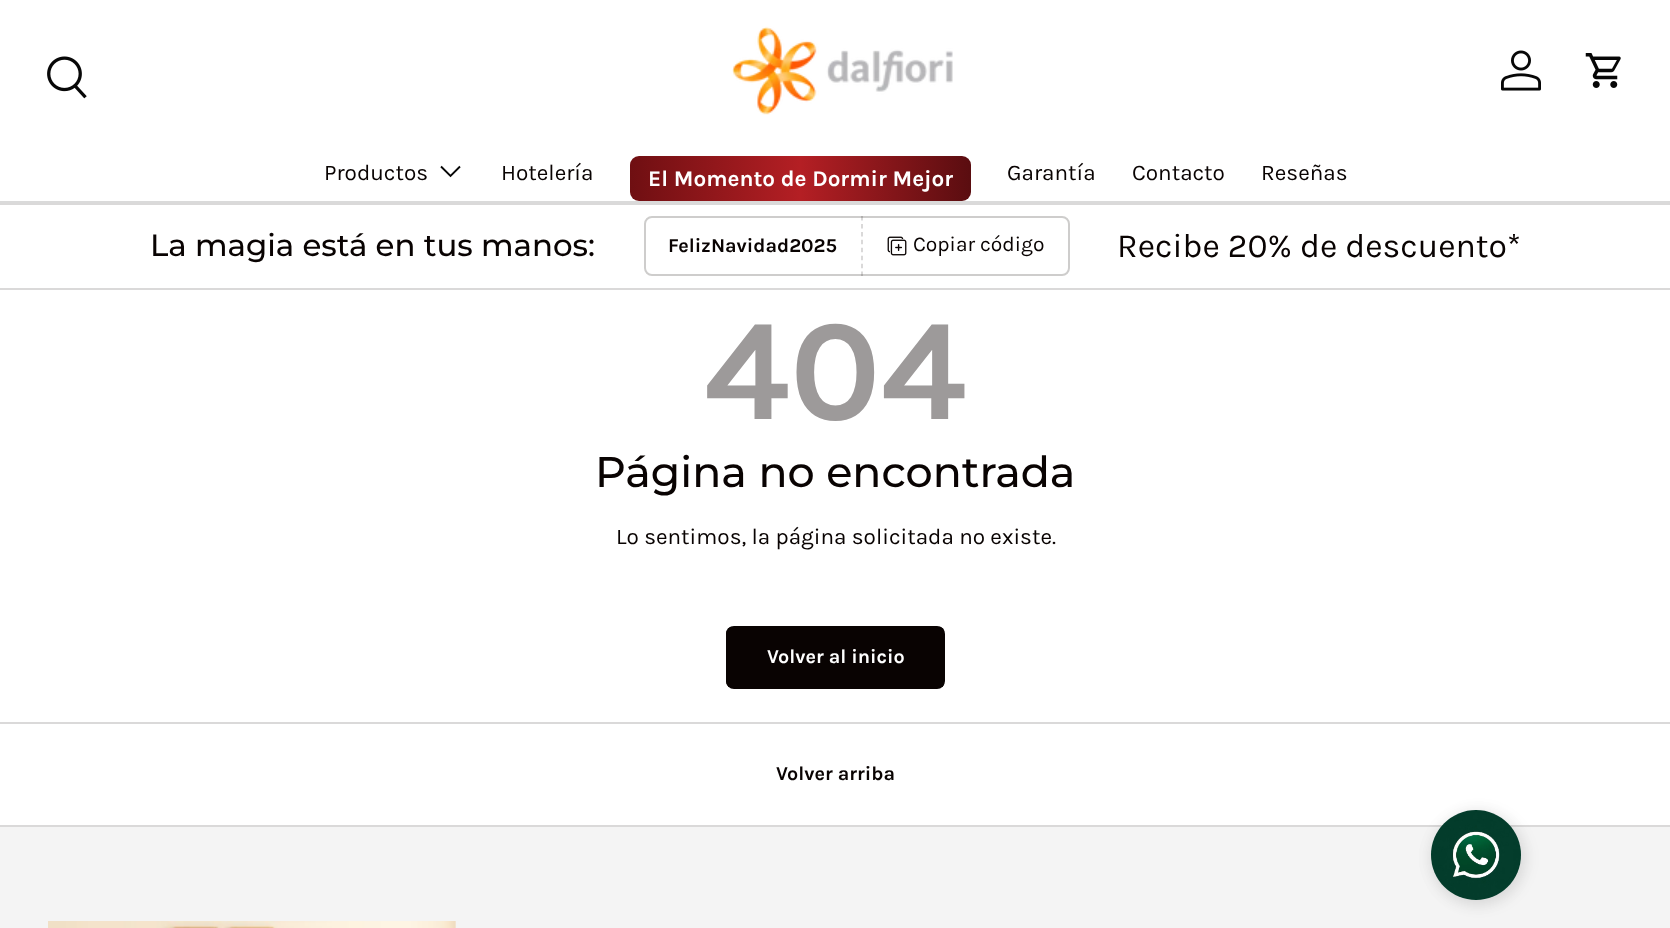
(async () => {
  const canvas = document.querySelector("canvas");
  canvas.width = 1670;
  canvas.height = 928;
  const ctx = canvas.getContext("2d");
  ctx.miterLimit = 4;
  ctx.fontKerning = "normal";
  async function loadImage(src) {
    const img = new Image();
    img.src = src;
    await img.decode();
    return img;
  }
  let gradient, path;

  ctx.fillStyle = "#ffffff";
  ctx.fillRect(0, 0, 1670, 928);
  ctx.fillStyle = "#dadada";
  ctx.fillRect(0, 201, 1670, 2);
  ctx.drawImage(await loadImage("img/1.png"), 47, 56, 40, 43);
  ctx.drawImage(await loadImage("img/2.png"), 732, 26, 221, 89);
  ctx.drawImage(await loadImage("img/3.png"), 1501, 50, 40, 41);
  ctx.drawImage(await loadImage("img/4.png"), 1585, 53, 36, 35);
  path = new Path2D("M460 166.5L450.5 176L441 166.5");
  ctx.strokeStyle = "#070707";
  ctx.lineWidth = 1.9;
  ctx.stroke(path);
  gradient = ctx.createLinearGradient(630, 179, 971, 179);
  gradient.addColorStop(0, "#6f0f12");
  gradient.addColorStop(0.5, "#b41f24");
  gradient.addColorStop(1, "#5a0d10");
  ctx.fillStyle = gradient;
  ctx.beginPath();
  ctx.roundRect(630, 156, 341, 45, 9);
  ctx.fill();
  ctx.fillStyle = "#dad9d9";
  ctx.fillRect(0, 203, 1670, 2);
  ctx.fillRect(0, 288, 1670, 2);
  ctx.beginPath();
  ctx.roundRect(645, 217, 424, 58, 7);
  ctx.strokeStyle = "#cecdcc";
  ctx.lineWidth = 2;
  ctx.stroke();
  path = new Path2D("M862 216V276");
  ctx.strokeStyle = "rgba(9, 3, 2, 0.2)";
  ctx.lineWidth = 1.5;
  ctx.setLineDash([4.5, 3.44]);
  ctx.stroke(path);
  ctx.drawImage(await loadImage("img/5.png"), 887, 236, 20, 20);
  ctx.save();
  ctx.beginPath();
  ctx.roundRect(726, 626, 219, 63, 8);
  ctx.clip();
  gradient = ctx.createLinearGradient(307, 579, 932, 735);
  gradient.addColorStop(0.6, "#36302f");
  gradient.addColorStop(0.6, "#090302");
  gradient.addColorStop(1, "#090302");
  ctx.fillStyle = gradient;
  ctx.fillRect(726, 627, 218, 60);
  ctx.restore();
  ctx.beginPath();
  ctx.roundRect(727, 627, 217, 61, 7);
  ctx.strokeStyle = "#090302";
  ctx.lineWidth = 2;
  ctx.setLineDash([]);
  ctx.stroke();
  for (const [x, y, w, h, color] of [
    [0, 722, 1670, 2, "#dad9d9"],
    [0, 825, 1670, 2, "#dad9d9"],
    [0, 827, 1670, 101, "#f4f4f4"],
  ]) {
    ctx.fillStyle = color;
    ctx.fillRect(x, y, w, h);
  }
  ctx.drawImage(await loadImage("img/6.png"), 48, 921, 408, 7);
  ctx.fillStyle = "rgba(0, 0, 0, 0.07)";
  ctx.filter = "blur(7px)";
  ctx.beginPath();
  ctx.roundRect(1431, 810, 96, 96, 48);
  ctx.fill();
  ctx.filter = "none";
  ctx.fillStyle = "rgba(0, 0, 0, 0.05)";
  ctx.filter = "blur(7.5px)";
  ctx.beginPath();
  ctx.roundRect(1431, 813, 90, 90, 45);
  ctx.fill();
  ctx.filter = "none";
  ctx.drawImage(await loadImage("img/7.png"), 1431, 810, 90, 90);
  ctx.font = "22.5px Karla";
  ctx.fillStyle = "#090302";
  ctx.fillText("Productos", 324, 180);
  ctx.fillText("Hotelería", 501, 180);
  ctx.font = "bold 22.5px Karla";
  ctx.fillStyle = "#ffffff";
  ctx.fillText("El Momento de Dormir Mejor", 648, 186);
  ctx.font = "22.5px Karla";
  ctx.fillStyle = "#090302";
  for (const [text, x, y] of [
    ["Garantía", 1007, 180],
    ["Contacto", 1132, 180],
    ["Reseñas", 1261, 180],
  ]) {
    ctx.fillText(text, x, y);
  }
  ctx.font = "500 30.8px Montserrat";
  ctx.fillText("La magia está en tus manos:", 150, 256);
  ctx.font = "bold 19.75px Karla";
  ctx.fillText("FelizNavidad2025", 668, 252);
  ctx.font = "21px Karla";
  ctx.fillText("Copiar código", 913, 251);
  ctx.font = "33.75px Karla";
  ctx.fillText("Recibe 20% de descuento*", 1117, 257);
  ctx.font = "bold 144px Karla";
  ctx.fillStyle = "#9d9a9a";
  ctx.fillText("404", 704, 419);
  ctx.font = "500 42.75px Montserrat";
  ctx.fillStyle = "#090302";
  ctx.fillText("Página no encontrada", 595, 487);
  ctx.font = "22.5px Karla";
  ctx.fillText("Lo sentimos, la página solicitada no existe.", 616, 544);
  ctx.font = "bold 19.75px Karla";
  ctx.fillStyle = "#ffffff";
  ctx.fillText("Volver al inicio", 767, 663);
  ctx.fillStyle = "#090302";
  ctx.fillText("Volver arriba", 776, 780);
})();
